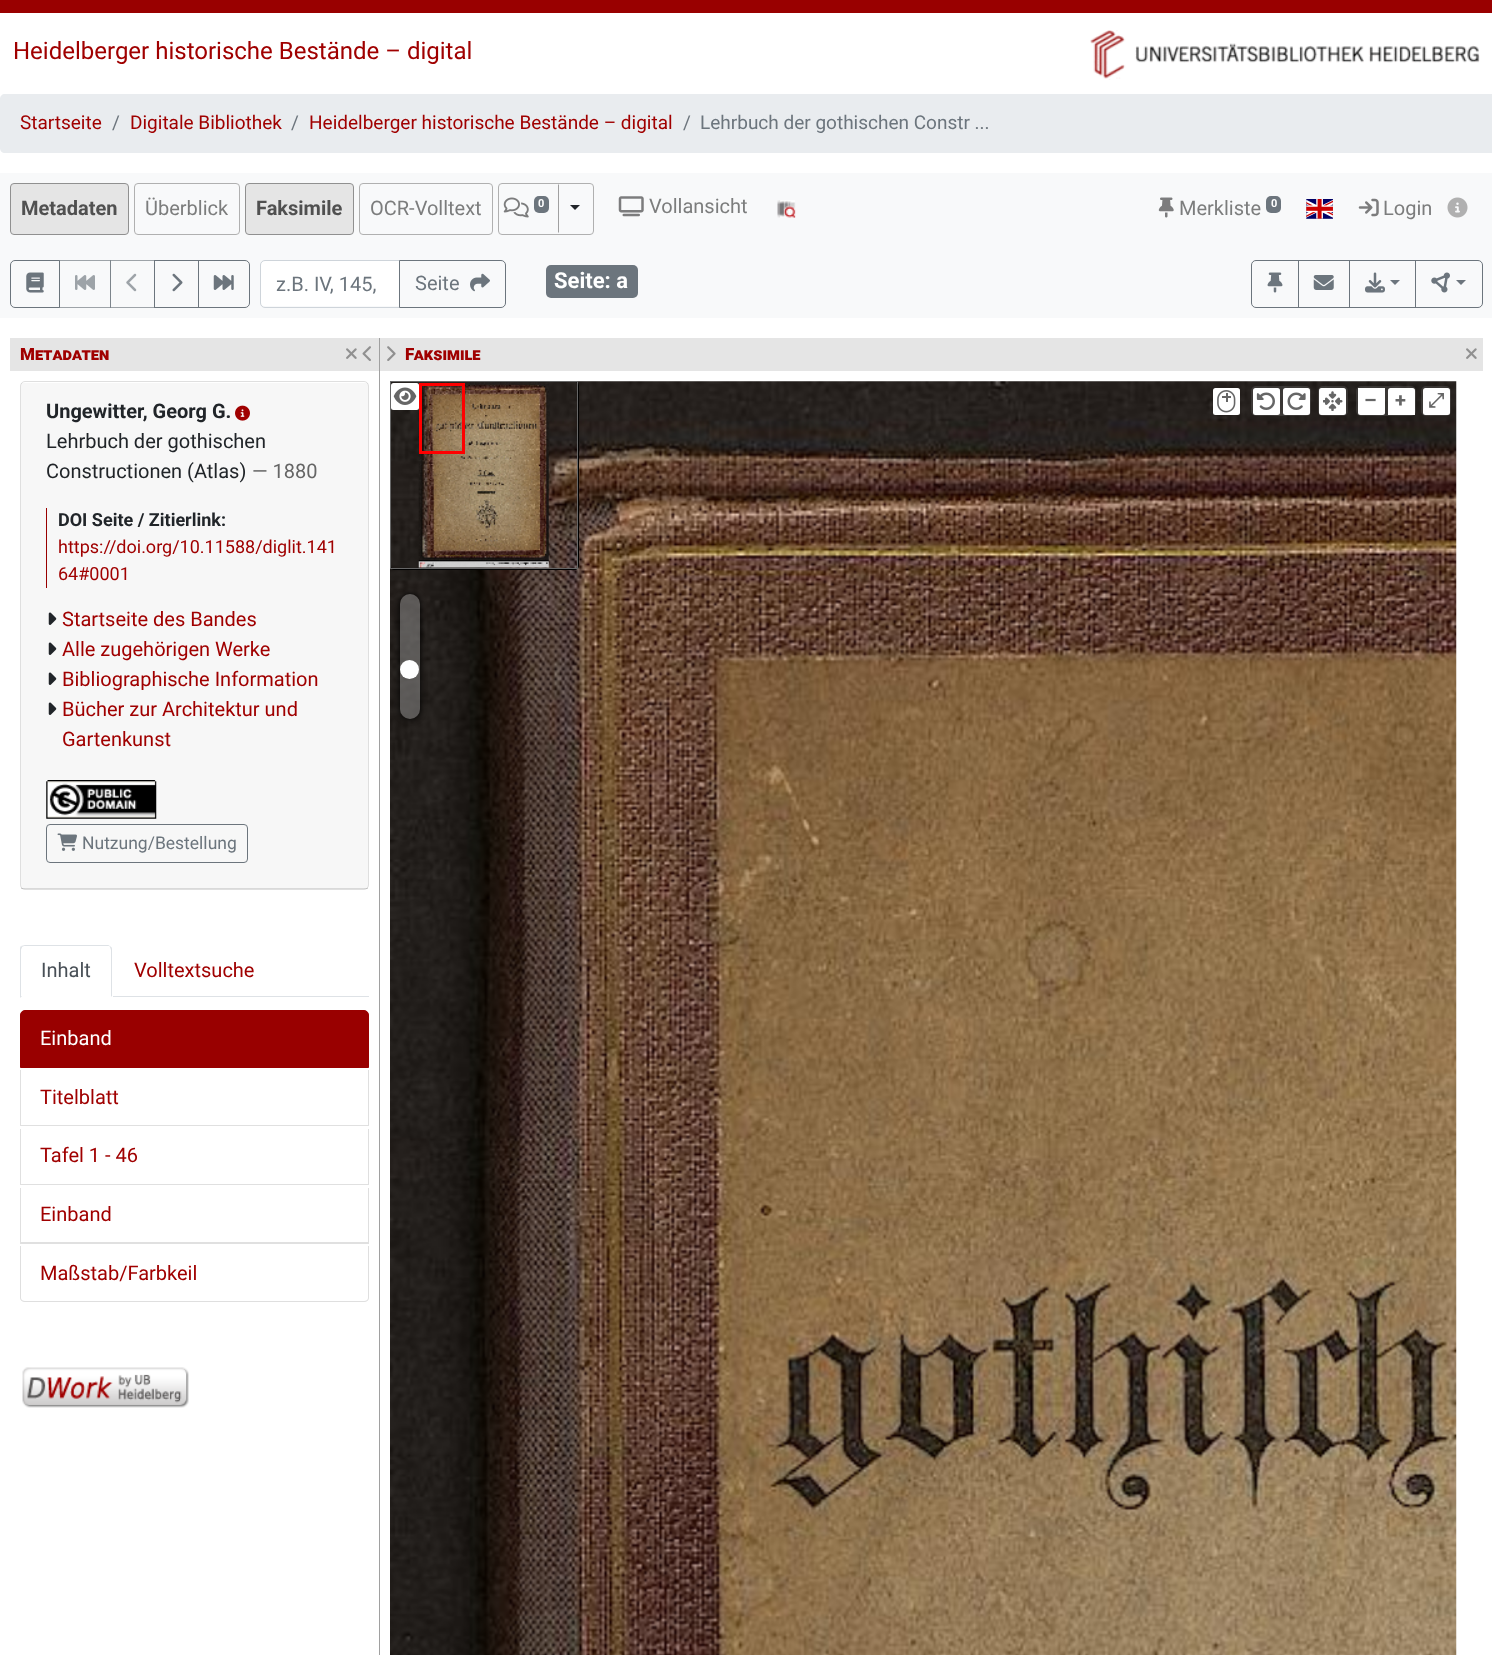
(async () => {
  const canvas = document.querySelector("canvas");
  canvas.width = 1492;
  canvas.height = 1655;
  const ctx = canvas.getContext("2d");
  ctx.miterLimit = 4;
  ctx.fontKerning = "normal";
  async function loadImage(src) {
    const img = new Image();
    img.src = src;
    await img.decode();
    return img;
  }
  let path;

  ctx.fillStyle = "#ffffff";
  ctx.fillRect(0, 0, 1492, 1655);
  ctx.fillStyle = "#990000";
  ctx.fillRect(0, 0, 1492, 13);
  ctx.drawImage(await loadImage("img/1.png"), 1090, 30, 390, 50);
  ctx.fillStyle = "#e9ecef";
  path = new Path2D("M5 94H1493V153H5C2 153 0 151 0 148V99C0 96 2 94 5 94Z");
  ctx.fill(path);
  ctx.fillStyle = "#f8f9fa";
  ctx.fillRect(0, 173, 1492, 145);
  ctx.fillStyle = "#e5e5e5";
  ctx.beginPath();
  ctx.roundRect(10.5, 183.5, 118, 51, 3.5);
  ctx.fill();
  ctx.strokeStyle = "#909090";
  ctx.stroke();
  ctx.beginPath();
  ctx.roundRect(134.5, 183.5, 105, 51, 3.5);
  ctx.strokeStyle = "#b0b0b0";
  ctx.stroke();
  ctx.beginPath();
  ctx.roundRect(245.5, 183.5, 108, 51, 3.5);
  ctx.fill();
  ctx.strokeStyle = "#909090";
  ctx.stroke();
  ctx.beginPath();
  ctx.roundRect(359.5, 183.5, 133, 51, 3.5);
  ctx.strokeStyle = "#b0b0b0";
  ctx.stroke();
  ctx.beginPath();
  ctx.roundRect(498.5, 183.5, 95, 51, 3.5);
  ctx.stroke();
  ctx.drawImage(await loadImage("img/2.png"), 503, 197, 26, 21);
  ctx.fillStyle = "#6c757d";
  ctx.beginPath();
  ctx.roundRect(534, 196, 15, 17, 5);
  ctx.fill();
  ctx.fillStyle = "#a0a0a0";
  path = new Path2D("M558 184V233L559 232V185Z");
  ctx.fill(path);
  ctx.fillStyle = "#212529";
  path = new Path2D("M570 205H580L575 210Z");
  ctx.fill(path);
  ctx.drawImage(await loadImage("img/3.png"), 618, 196, 26, 21);
  ctx.drawImage(await loadImage("img/4.png"), 777, 200, 19, 18);
  ctx.drawImage(await loadImage("img/5.png"), 1158, 197, 16, 21);
  ctx.fillStyle = "#6c757d";
  ctx.beginPath();
  ctx.roundRect(1266, 196, 15, 17, 5);
  ctx.fill();
  ctx.drawImage(await loadImage("img/6.png"), 1306, 199, 27, 20);
  ctx.drawImage(await loadImage("img/7.png"), 1358, 198, 21, 19);
  ctx.drawImage(await loadImage("img/8.png"), 1447, 197, 21, 21);
  ctx.beginPath();
  ctx.roundRect(10.5, 260.5, 49, 47, [4.5, 0, 0, 4.5]);
  ctx.strokeStyle = "#6c757d";
  ctx.stroke();
  ctx.drawImage(await loadImage("img/9.png"), 26, 272, 18, 21);
  ctx.strokeStyle = "rgba(108, 117, 125, 0.65)";
  ctx.strokeRect(59.5, 260.5, 51, 47);
  ctx.drawImage(await loadImage("img/10.png"), 75, 275, 20, 15);
  ctx.strokeRect(110.5, 260.5, 44, 47);
  ctx.drawImage(await loadImage("img/11.png"), 126, 273, 11, 19);
  ctx.strokeStyle = "#6c757d";
  ctx.strokeRect(154.5, 260.5, 44, 47);
  ctx.drawImage(await loadImage("img/12.png"), 172, 273, 11, 19);
  ctx.beginPath();
  ctx.roundRect(198.5, 260.5, 51, 47, [0, 4.5, 4.5, 0]);
  ctx.stroke();
  ctx.drawImage(await loadImage("img/13.png"), 213, 275, 21, 15);
  ctx.fillStyle = "#ffffff";
  ctx.beginPath();
  ctx.roundRect(261, 261, 138, 45, [4, 0, 0, 4]);
  ctx.fill();
  ctx.beginPath();
  ctx.roundRect(260.5, 260.5, 139, 47, [4.5, 0, 0, 4.5]);
  ctx.strokeStyle = "#ced4da";
  ctx.stroke();
  ctx.beginPath();
  ctx.roundRect(399.5, 260.5, 106, 47, [0, 4.5, 4.5, 0]);
  ctx.strokeStyle = "#6c757d";
  ctx.stroke();
  ctx.drawImage(await loadImage("img/14.png"), 470, 273, 20, 19);
  ctx.fillStyle = "#6c757d";
  ctx.beginPath();
  ctx.roundRect(546, 265, 92, 33, 5);
  ctx.fill();
  ctx.beginPath();
  ctx.roundRect(1251.5, 260.5, 47, 47, [4.5, 0, 0, 4.5]);
  ctx.stroke();
  ctx.drawImage(await loadImage("img/15.png"), 1267, 272, 16, 21);
  ctx.strokeRect(1298.5, 260.5, 51, 47);
  ctx.drawImage(await loadImage("img/16.png"), 1313, 275, 21, 15);
  ctx.strokeRect(1349.5, 260.5, 66, 47);
  ctx.drawImage(await loadImage("img/17.png"), 1365, 272, 20, 21);
  path = new Path2D("M1390 280H1400L1395 285Z");
  ctx.fill(path);
  ctx.beginPath();
  ctx.roundRect(1415.5, 260.5, 67, 47, [0, 4.5, 4.5, 0]);
  ctx.stroke();
  ctx.drawImage(await loadImage("img/18.png"), 1431, 272, 19, 21);
  path = new Path2D("M1456 280H1466L1461 285Z");
  ctx.fill(path);
  ctx.fillStyle = "#e5e5e5";
  ctx.fillRect(10, 338, 369, 33);
  ctx.drawImage(await loadImage("img/19.png"), 346, 348, 11, 11);
  ctx.drawImage(await loadImage("img/20.png"), 362, 346, 9, 15);
  ctx.beginPath();
  ctx.roundRect(20.5, 381.5, 348, 508, 4.5);
  ctx.strokeStyle = "#dfdfdf";
  ctx.stroke();
  ctx.fillStyle = "rgba(0, 0, 0, 0.03)";
  ctx.fillRect(21, 383, 347, 506);
  ctx.fillStyle = "rgba(0, 0, 0, 0.12)";
  ctx.fillRect(21, 888, 347, 1);
  ctx.drawImage(await loadImage("img/21.png"), 235, 405, 15, 16);
  ctx.fillStyle = "#990000";
  ctx.fillRect(46, 508, 1, 80);
  ctx.drawImage(await loadImage("img/22.png"), 48, 612, 9, 13);
  ctx.drawImage(await loadImage("img/22.png"), 48, 642, 9, 13);
  ctx.drawImage(await loadImage("img/22.png"), 48, 672, 9, 13);
  ctx.drawImage(await loadImage("img/22.png"), 48, 702, 9, 13);
  ctx.drawImage(await loadImage("img/23.png"), 46, 780, 111, 39);
  ctx.beginPath();
  ctx.roundRect(46.5, 824.5, 201, 38, 3.5);
  ctx.strokeStyle = "#6c757d";
  ctx.stroke();
  ctx.drawImage(await loadImage("img/24.png"), 57, 833, 20, 18);
  ctx.fillStyle = "#dee2e6";
  ctx.fillRect(113, 996, 256, 1);
  path = new Path2D("M25 945C24 945 22 946 21 946L22 947C23 946 24 946 25 946H108C109 946 110 946 110 947H111C110 946 109 945 108 945Z");
  ctx.fill(path);
  path = new Path2D("M111 947C112 947 112 949 112 950V997L111 996V950L110 947Z");
  ctx.fill(path);
  ctx.fillStyle = "#ffffff";
  path = new Path2D("M112 998H20L22 996H111Z");
  ctx.fill(path);
  ctx.fillStyle = "#dee2e6";
  path = new Path2D("M20 998L22 996H21V950C21 949 22 948 22 947L21 946C20 947 20 948 20 950Z");
  ctx.fill(path);
  ctx.fillStyle = "#990000";
  ctx.beginPath();
  ctx.roundRect(20.5, 1010.5, 348, 57, [4.5, 4.5, 0, 0]);
  ctx.fill();
  ctx.strokeStyle = "#990000";
  ctx.stroke();
  ctx.fillStyle = "#dfdfdf";
  path = new Path2D("M369 1070V1126L368 1125V1070Z");
  ctx.fill(path);
  ctx.fillStyle = "rgba(0, 0, 0, 0.12)";
  path = new Path2D("M369 1126H20L21 1125H368Z");
  ctx.fill(path);
  path = new Path2D("M20 1126V1070H21V1125Z");
  ctx.fill(path);
  ctx.fillStyle = "#dfdfdf";
  path = new Path2D("M369 1129V1185L368 1184V1129Z");
  ctx.fill(path);
  ctx.fillStyle = "rgba(0, 0, 0, 0.12)";
  path = new Path2D("M369 1185H20L21 1184H368Z");
  ctx.fill(path);
  path = new Path2D("M20 1185V1129H21V1184Z");
  ctx.fill(path);
  ctx.fillStyle = "#dfdfdf";
  path = new Path2D("M369 1188V1244L368 1242V1188Z");
  ctx.fill(path);
  ctx.fillStyle = "rgba(0, 0, 0, 0.12)";
  path = new Path2D("M369 1244H20L21 1242H368Z");
  ctx.fill(path);
  path = new Path2D("M20 1244V1188H21V1242Z");
  ctx.fill(path);
  ctx.fillStyle = "#dfdfdf";
  path = new Path2D("M20 1246H369V1298C369 1300 367 1302 364 1302H25C22 1302 20 1300 20 1298ZM21 1246H368V1298C368 1300 366 1301 364 1301H25C23 1301 21 1300 21 1298Z");
  ctx.fill(path, "evenodd");
  ctx.drawImage(await loadImage("img/25.png"), 22, 1367, 167, 41);
  ctx.fillStyle = "#a0a0a0";
  ctx.fillRect(379, 338, 1, 1317);
  ctx.fillStyle = "#e5e5e5";
  ctx.fillRect(380, 338, 1103, 33);
  ctx.drawImage(await loadImage("img/26.png"), 387, 346, 9, 15);
  ctx.drawImage(await loadImage("img/19.png"), 1466, 348, 11, 11);
  ctx.drawImage(await loadImage("img/27.png"), 390, 381, 1067, 1274);
  ctx.fillStyle = "#000000";
  path = new Path2D("M395 381H574C577 381 579 383 579 386V565C579 568 577 570 574 570H395C392 570 390 568 390 565V386C390 383 392 381 395 381ZM395 381H574C576 381 578 383 578 386V565C578 567 576 569 574 569H395C392 569 390 567 390 565V386C390 383 392 381 395 381Z");
  ctx.fill(path, "evenodd");
  ctx.strokeStyle = "#666666";
  ctx.strokeRect(390.5, 381.5, 187, 187);
  ctx.drawImage(await loadImage("img/28.png"), 418, 382, 131, 186);
  ctx.strokeStyle = "#ff0000";
  ctx.lineWidth = 3;
  ctx.strokeRect(420.5, 384.5, 43, 68);
  ctx.fillStyle = "#ffffff";
  ctx.beginPath();
  ctx.roundRect(391, 383, 28, 27, 2.5);
  ctx.fill();
  ctx.drawImage(await loadImage("img/29.png"), 393, 387, 24, 18);
  ctx.beginPath();
  ctx.roundRect(1213, 388, 27, 27, 2.5);
  ctx.fill();
  ctx.drawImage(await loadImage("img/30.png"), 1217, 390, 19, 23);
  ctx.fillStyle = "rgba(128, 128, 128, 0.25)";
  ctx.beginPath();
  ctx.roundRect(1251, 386, 60, 30, 5);
  ctx.fill();
  ctx.fillStyle = "#ffffff";
  ctx.beginPath();
  ctx.roundRect(1253, 388, 27, 27, 2.5);
  ctx.fill();
  ctx.drawImage(await loadImage("img/31.png"), 1256, 392, 19, 18);
  ctx.beginPath();
  ctx.roundRect(1283, 388, 27, 27, 2.5);
  ctx.fill();
  ctx.drawImage(await loadImage("img/32.png"), 1287, 392, 19, 18);
  ctx.fillStyle = "rgba(128, 128, 128, 0.25)";
  ctx.beginPath();
  ctx.roundRect(1318, 386, 30, 30, 5);
  ctx.fill();
  ctx.fillStyle = "#ffffff";
  ctx.beginPath();
  ctx.roundRect(1319, 388, 27, 27, 2.5);
  ctx.fill();
  ctx.drawImage(await loadImage("img/33.png"), 1323, 391, 20, 20);
  ctx.fillStyle = "rgba(128, 128, 128, 0.25)";
  ctx.beginPath();
  ctx.roundRect(1356, 386, 60, 30, 5);
  ctx.fill();
  ctx.fillStyle = "#ffffff";
  ctx.beginPath();
  ctx.roundRect(1358, 388, 27, 27, [0, 0, 2.5, 2.5]);
  ctx.fill();
  ctx.beginPath();
  ctx.roundRect(1388, 388, 27, 27, [2.5, 2.5, 0, 0]);
  ctx.fill();
  ctx.fillStyle = "rgba(128, 128, 128, 0.25)";
  ctx.beginPath();
  ctx.roundRect(1421, 386, 30, 30, 5);
  ctx.fill();
  ctx.fillStyle = "#ffffff";
  ctx.beginPath();
  ctx.roundRect(1423, 388, 27, 27, 2.5);
  ctx.fill();
  ctx.save();
  path = new Path2D("M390 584H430V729H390ZM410 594C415.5 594 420 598.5 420 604V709C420 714.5 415.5 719 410 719C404.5 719 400 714.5 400 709V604C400 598.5 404.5 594 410 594Z");
  ctx.clip(path, "evenodd");
  ctx.fillStyle = "#000000";
  ctx.filter = "blur(3px)";
  ctx.beginPath();
  ctx.roundRect(400, 594, 20, 125, 10);
  ctx.fill();
  ctx.filter = "none";
  ctx.restore();
  ctx.fillStyle = "rgba(180, 180, 180, 0.4)";
  ctx.beginPath();
  ctx.roundRect(400, 594, 20, 125, 10);
  ctx.fill();
  ctx.fillStyle = "#ffffff";
  ctx.beginPath();
  ctx.arc(409.5, 669.5, 9.5, 0, Math.PI * 2);
  ctx.fill();
  ctx.font = "24px Roboto";
  ctx.fillStyle = "#a00000";
  ctx.fillText("Heidelberger historische Bestände – digital", 13, 59);
  ctx.font = "19px Roboto";
  ctx.fillText("Startseite", 20, 129);
  ctx.fillStyle = "#6c757d";
  ctx.fillText("/", 112, 129);
  ctx.fillStyle = "#a00000";
  ctx.fillText("Digitale Bibliothek", 130, 129);
  ctx.fillStyle = "#6c757d";
  ctx.fillText("/", 291, 129);
  ctx.fillStyle = "#a00000";
  ctx.fillText("Heidelberger historische Bestände – digital", 309, 129);
  ctx.fillStyle = "#6c757d";
  ctx.fillText("/", 683, 129);
  ctx.fillText("Lehrbuch der gothischen Constr ...", 700, 129);
  ctx.font = "bold 20px Roboto";
  ctx.fillStyle = "#505050";
  ctx.fillText("Metadaten", 21, 215);
  ctx.font = "20px Roboto";
  ctx.fillStyle = "#7c7d7d";
  ctx.fillText("Überblick", 145, 215);
  ctx.font = "bold 20px Roboto";
  ctx.fillStyle = "#505050";
  ctx.fillText("Faksimile", 256, 215);
  ctx.font = "20px Roboto";
  ctx.fillStyle = "#7c7d7d";
  ctx.fillText("OCR-Volltext", 370, 215);
  ctx.font = "bold 11px Roboto";
  ctx.fillStyle = "#ffffff";
  ctx.fillText("0", 538, 207);
  ctx.font = "20px Roboto";
  ctx.fillStyle = "#7c7d7d";
  ctx.fillText("Vollansicht", 649, 213);
  ctx.fillText("Merkliste", 1179, 215);
  ctx.font = "bold 11px Roboto";
  ctx.fillStyle = "#ffffff";
  ctx.fillText("0", 1271, 207);
  ctx.font = "20px Roboto";
  ctx.fillStyle = "#7c7d7d";
  ctx.fillText("Login", 1383, 215);
  ctx.fillStyle = "#6c757d";
  ctx.fillText("z.B. IV, 145,", 276, 291);
  ctx.fillText("Seite", 415, 290);
  ctx.font = "bold 22px Roboto";
  ctx.fillStyle = "#ffffff";
  ctx.fillText("Seite: a", 554, 288);
  ctx.font = "900 17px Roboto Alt";
  ctx.fillStyle = "#a00000";
  ctx.fillText("Metadaten", 20, 360);
  ctx.font = "bold 20px Roboto";
  ctx.fillStyle = "#212529";
  ctx.fillText("Ungewitter, Georg G.", 46, 418);
  ctx.font = "20px Roboto";
  ctx.fillText("Lehrbuch der gothischen", 46, 448);
  ctx.fillText("Constructionen (Atlas)", 46, 478);
  ctx.fillStyle = "#666666";
  ctx.fillText("— 1880", 252, 478);
  ctx.font = "bold 18px Roboto";
  ctx.fillStyle = "#212529";
  ctx.fillText("DOI Seite / Zitierlink:", 58, 526);
  ctx.font = "18px Roboto";
  ctx.fillStyle = "#a00000";
  ctx.fillText("https://doi.org/10.11588/diglit.141", 58, 553);
  ctx.fillText("64#0001", 58, 580);
  ctx.font = "20px Roboto";
  for (const [text, x, y] of [
    ["Startseite des Bandes", 62, 626],
    ["Alle zugehörigen Werke", 62, 656],
    ["Bibliographische Information", 62, 686],
    ["Bücher zur Architektur und", 62, 716],
    ["Gartenkunst", 62, 746],
  ]) {
    ctx.fillText(text, x, y);
  }
  ctx.font = "17.5px Roboto";
  ctx.fillStyle = "#6c757d";
  ctx.fillText("Nutzung/Bestellung", 82, 849);
  ctx.font = "20px Roboto";
  ctx.fillStyle = "#495057";
  ctx.fillText("Inhalt", 41, 977);
  ctx.fillStyle = "#a00000";
  ctx.fillText("Volltextsuche", 134, 977);
  ctx.fillStyle = "#ffffff";
  ctx.fillText("Einband", 40, 1045);
  ctx.fillStyle = "#a00000";
  for (const [text, x, y] of [
    ["Titelblatt", 40, 1104],
    ["Tafel 1 - 46", 40, 1162],
    ["Einband", 40, 1221],
    ["Maßstab/Farbkeil", 40, 1280],
  ]) {
    ctx.fillText(text, x, y);
  }
  ctx.font = "900 17px Roboto Alt";
  ctx.fillText("Faksimile", 405, 360);
  ctx.font = "bold 20px Roboto";
  ctx.fillStyle = "#666666";
  ctx.fillText("–", 1364, 407);
  ctx.fillText("+", 1395, 407);
  ctx.font = "bold 20px FreeSerif";
  ctx.fillText("⤢", 1428, 407);
})();
